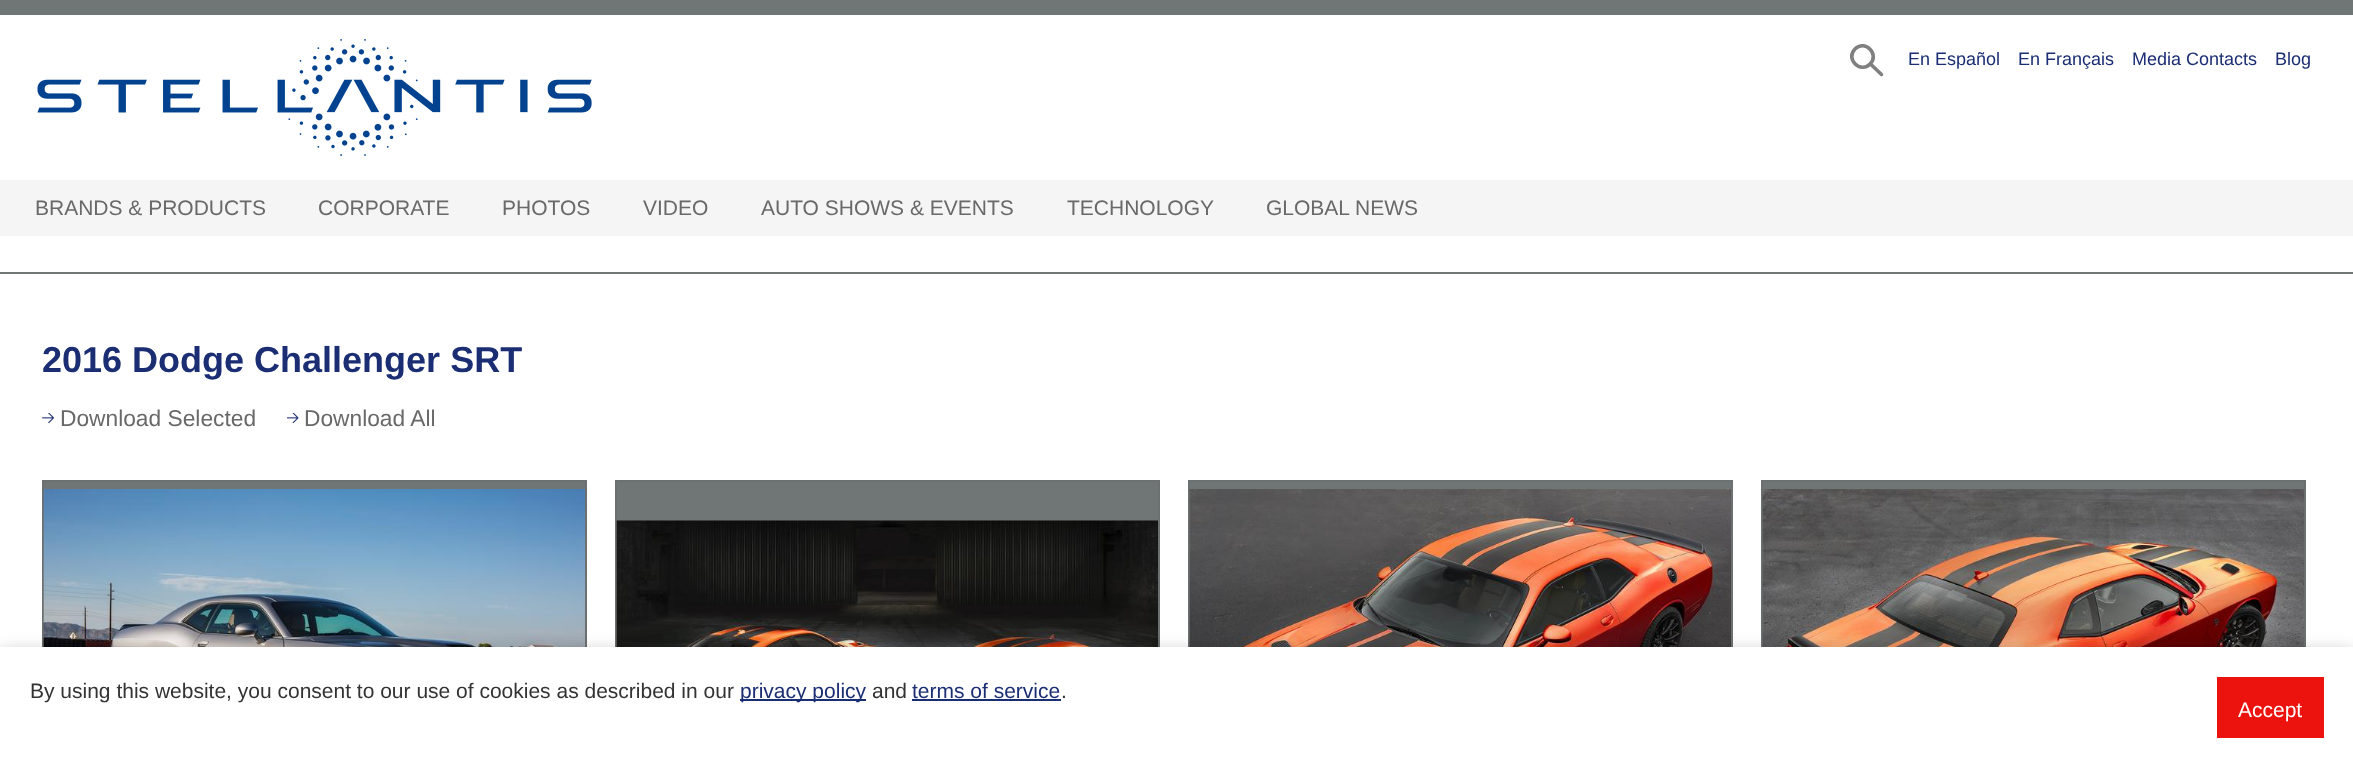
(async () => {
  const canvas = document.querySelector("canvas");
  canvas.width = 2353;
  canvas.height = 767;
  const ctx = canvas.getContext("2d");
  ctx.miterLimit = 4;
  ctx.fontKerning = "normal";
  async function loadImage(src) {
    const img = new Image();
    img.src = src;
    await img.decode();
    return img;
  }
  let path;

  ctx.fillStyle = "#ffffff";
  ctx.fillRect(0, 0, 2353, 767);
  ctx.fillStyle = "#707575";
  ctx.fillRect(0, 0, 2353, 15);
  ctx.drawImage(await loadImage("img/1.png"), 37, 39, 555, 117);
  path = new Path2D("M1855 49C1865 39 1880 54.5 1870 64C1860.5 74 1845 59 1855 49Z");
  ctx.strokeStyle = "#808080";
  ctx.lineWidth = 3.6;
  ctx.stroke(path);
  path = new Path2D("M1871.5 65L1881.5 74.5");
  ctx.lineCap = "round";
  ctx.stroke(path);
  ctx.fillStyle = "#f5f5f5";
  ctx.fillRect(0, 180, 2353, 56);
  ctx.fillStyle = "#707575";
  ctx.fillRect(0, 272, 2353, 2);
  ctx.drawImage(await loadImage("img/2.png"), 42, 413, 12, 10);
  ctx.drawImage(await loadImage("img/3.png"), 287, 413, 12, 10);
  ctx.fillRect(42, 480, 545, 167);
  ctx.drawImage(await loadImage("img/4.png"), 43, 489, 542, 158);
  ctx.strokeStyle = "rgba(105, 105, 105, 0.4)";
  ctx.lineWidth = 2;
  ctx.strokeRect(43, 481, 543, 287);
  ctx.fillRect(615, 480, 545, 167);
  ctx.drawImage(await loadImage("img/5.png"), 616, 520, 542, 127);
  ctx.strokeRect(616, 481, 543, 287);
  ctx.fillRect(1188, 480, 545, 167);
  ctx.drawImage(await loadImage("img/6.png"), 1189, 489, 542, 158);
  ctx.strokeRect(1189, 481, 543, 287);
  ctx.fillRect(1761, 480, 545, 167);
  ctx.drawImage(await loadImage("img/7.png"), 1762, 489, 542, 158);
  ctx.strokeRect(1762, 481, 543, 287);
  ctx.fillStyle = "rgba(0, 0, 0, 0.3)";
  ctx.filter = "blur(9px)";
  ctx.beginPath();
  ctx.rect(0, 653, 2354, 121);
  ctx.fill();
  ctx.filter = "none";
  for (const [x, y, w, h, color] of [
    [0, 647, 2353, 120, "#ffffff"],
    [740, 699, 126, 2, "#1b2e73"],
    [912, 699, 149, 2, "#1b2e73"],
    [2217, 677, 107, 61, "#ec130e"],
  ]) {
    ctx.fillStyle = color;
    ctx.fillRect(x, y, w, h);
  }
  ctx.font = "18px Liberation Sans";
  ctx.fillStyle = "#1b2e73";
  for (const [text, x, y] of [
    ["En Español", 1908, 65],
    ["En Français", 2018, 65],
    ["Media Contacts", 2132, 65],
    ["Blog", 2275, 65],
  ]) {
    ctx.fillText(text, x, y);
  }
  ctx.font = "21px Liberation Sans";
  ctx.fillStyle = "#696969";
  for (const [text, x, y] of [
    ["BRANDS & PRODUCTS", 35, 215],
    ["CORPORATE", 318, 215],
    ["PHOTOS", 502, 215],
    ["VIDEO", 643, 215],
    ["AUTO SHOWS & EVENTS", 761, 215],
    ["TECHNOLOGY", 1067, 215],
    ["GLOBAL NEWS", 1266, 215],
  ]) {
    ctx.fillText(text, x, y);
  }
  ctx.font = "bold 36px Liberation Sans";
  ctx.fillStyle = "#1b2e73";
  ctx.fillText("2016 Dodge Challenger SRT", 42, 372);
  ctx.font = "22.75px Liberation Sans";
  ctx.fillStyle = "#696969";
  ctx.fillText("Download Selected", 60, 426);
  ctx.fillText("Download All", 304, 426);
  ctx.font = "21px Liberation Sans";
  ctx.fillStyle = "#333333";
  ctx.fillText("By using this website, you consent to our use of cookies as described in our", 30, 698);
  ctx.fillStyle = "#1b2e73";
  ctx.fillText("privacy policy", 740, 698);
  ctx.fillStyle = "#333333";
  ctx.fillText("and", 872, 698);
  ctx.fillStyle = "#1b2e73";
  ctx.fillText("terms of service", 912, 698);
  ctx.fillStyle = "#333333";
  ctx.fillText(".", 1061, 698);
  ctx.fillStyle = "#ffffff";
  ctx.fillText("Accept", 2238, 717);
})();
